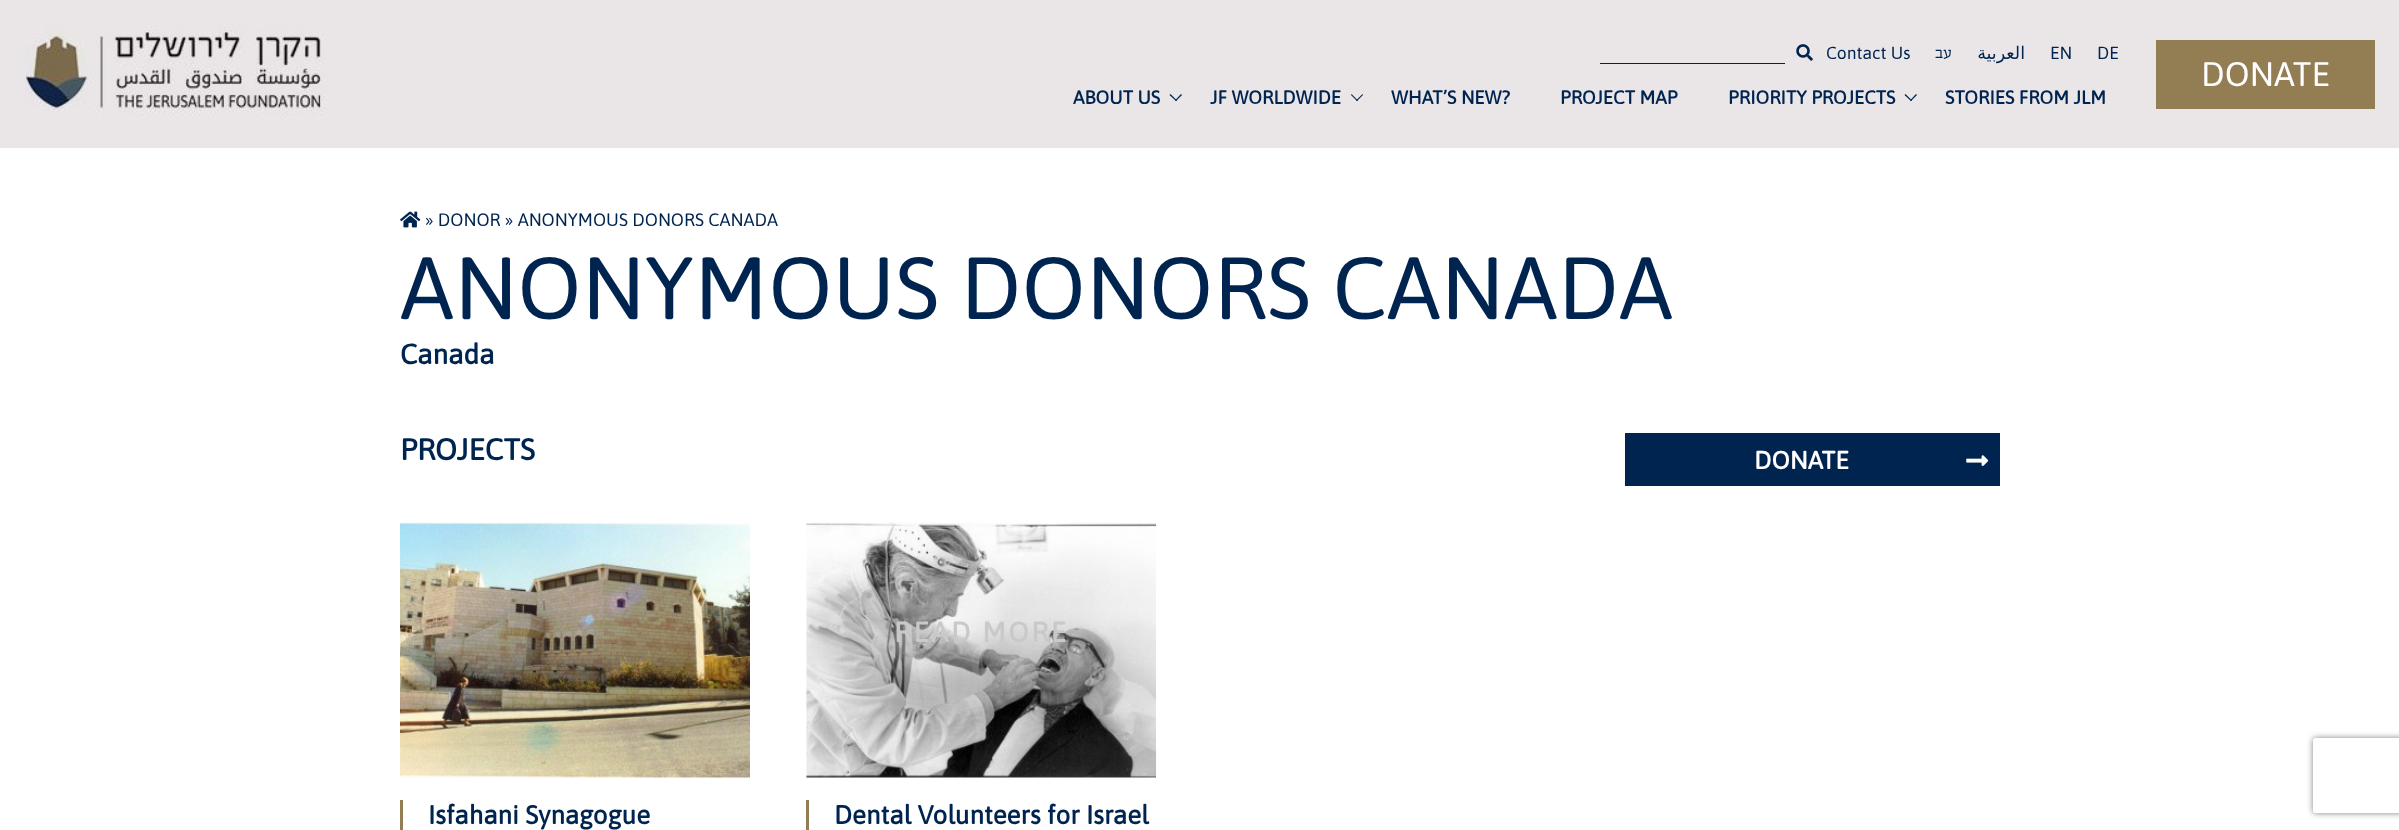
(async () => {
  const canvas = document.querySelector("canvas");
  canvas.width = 2399;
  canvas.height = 830;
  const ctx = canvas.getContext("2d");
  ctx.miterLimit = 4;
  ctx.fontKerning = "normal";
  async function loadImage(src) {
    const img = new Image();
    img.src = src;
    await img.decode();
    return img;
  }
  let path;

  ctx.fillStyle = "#ffffff";
  ctx.fillRect(0, 0, 2399, 830);
  ctx.fillStyle = "#eae6e7";
  ctx.fillRect(0, 0, 2399, 148);
  ctx.drawImage(await loadImage("img/1.png"), 25, 25, 300, 91);
  ctx.drawImage(await loadImage("img/2.png"), 1796, 44, 17, 17);
  ctx.fillStyle = "#002450";
  ctx.fillRect(1600, 63, 185, 1);
  ctx.fillStyle = "#937e53";
  ctx.fillRect(2156, 40, 219, 69);
  ctx.fillStyle = "#002450";
  path = new Path2D("M1181 94L1182 95L1176 101L1175 100.5Z");
  ctx.fill(path);
  path = new Path2D("M1170.5 94L1177 100.5L1176 101L1169.5 95Z");
  ctx.fill(path);
  path = new Path2D("M1362.5 94L1363 95L1357 101L1356 100.5Z");
  ctx.fill(path);
  path = new Path2D("M1351.5 94L1358 100.5L1357 101L1351 95Z");
  ctx.fill(path);
  path = new Path2D("M1916 94L1917 95L1911 101L1910 100.5Z");
  ctx.fill(path);
  path = new Path2D("M1905.5 94L1912 100.5L1911 101L1904.5 95Z");
  ctx.fill(path);
  ctx.drawImage(await loadImage("img/3.png"), 400, 211, 21, 17);
  ctx.drawImage(await loadImage("img/4.png"), 400, 522, 350, 256);
  ctx.fillStyle = "#937e53";
  ctx.fillRect(400, 800, 3, 30);
  ctx.drawImage(await loadImage("img/5.png"), 806, 522, 351, 256);
  ctx.fillRect(806, 800, 3, 30);
  ctx.fillStyle = "#002450";
  ctx.fillRect(1625, 433, 375, 53);
  ctx.drawImage(await loadImage("img/6.png"), 1966, 455, 23, 11);
  ctx.save();
  path = new Path2D("M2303 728H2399V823H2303ZM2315.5 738H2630.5C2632 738 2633 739 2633 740.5V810.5C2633 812 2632 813 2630.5 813H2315.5C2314 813 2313 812 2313 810.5V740.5C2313 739 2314 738 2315.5 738Z");
  ctx.clip(path, "evenodd");
  ctx.fillStyle = "#808080";
  ctx.filter = "blur(3px)";
  ctx.beginPath();
  ctx.roundRect(2313, 738, 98, 75, 2.5);
  ctx.fill();
  ctx.filter = "none";
  ctx.restore();
  ctx.font = "17.5px Asap";
  ctx.fillText("Contact Us", 1826, 59);
  ctx.direction = "rtl";
  ctx.font = "17.5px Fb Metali";
  ctx.fillText("עב", 1952, 58);
  ctx.font = "17.5px DejaVu Sans";
  ctx.fillText("العربية", 2025, 59);
  ctx.direction = "ltr";
  ctx.font = "17.5px Asap";
  ctx.fillText("EN", 2050, 59);
  ctx.fillText("DE", 2097, 59);
  ctx.font = "34px Asap";
  ctx.fillStyle = "#fffdfe";
  ctx.fillText("DONATE", 2201, 86);
  ctx.font = "bold 18.75px Asap";
  ctx.fillStyle = "#002450";
  for (const [text, x, y] of [
    ["ABOUT US", 1073, 104],
    ["JF WORLDWIDE", 1210, 104],
    ["WHAT’S NEW?", 1391, 104],
    ["PROJECT MAP", 1560, 104],
    ["PRIORITY PROJECTS", 1728, 104],
    ["STORIES FROM JLM", 1945, 104],
  ]) {
    ctx.fillText(text, x, y);
  }
  ctx.font = "18px Asap";
  ctx.fillText("» DONOR » ANONYMOUS DONORS CANADA", 425, 226);
  ctx.font = "88px Asap";
  ctx.fillText("ANONYMOUS DONORS CANADA", 400, 319);
  ctx.font = "bold 28px Asap";
  ctx.fillText("Canada", 400, 364);
  ctx.font = "bold 30px Asap";
  ctx.fillText("PROJECTS", 400, 460);
  ctx.font = "bold 26px Asap";
  ctx.fillText("Isfahani Synagogue", 428, 824);
  ctx.letterSpacing = "2.5px";
  ctx.font = "bold 28px Asap";
  ctx.fillStyle = "#c9c9c9";
  ctx.fillText("READ MORE", 894, 642);
  ctx.letterSpacing = "0px";
  ctx.font = "bold 26px Asap";
  ctx.fillStyle = "#002450";
  ctx.fillText("Dental Volunteers for Israel", 834, 824);
  ctx.font = "bold 25px Asap";
  ctx.fillStyle = "#fffdfe";
  ctx.fillText("DONATE", 1754, 469);
})();
